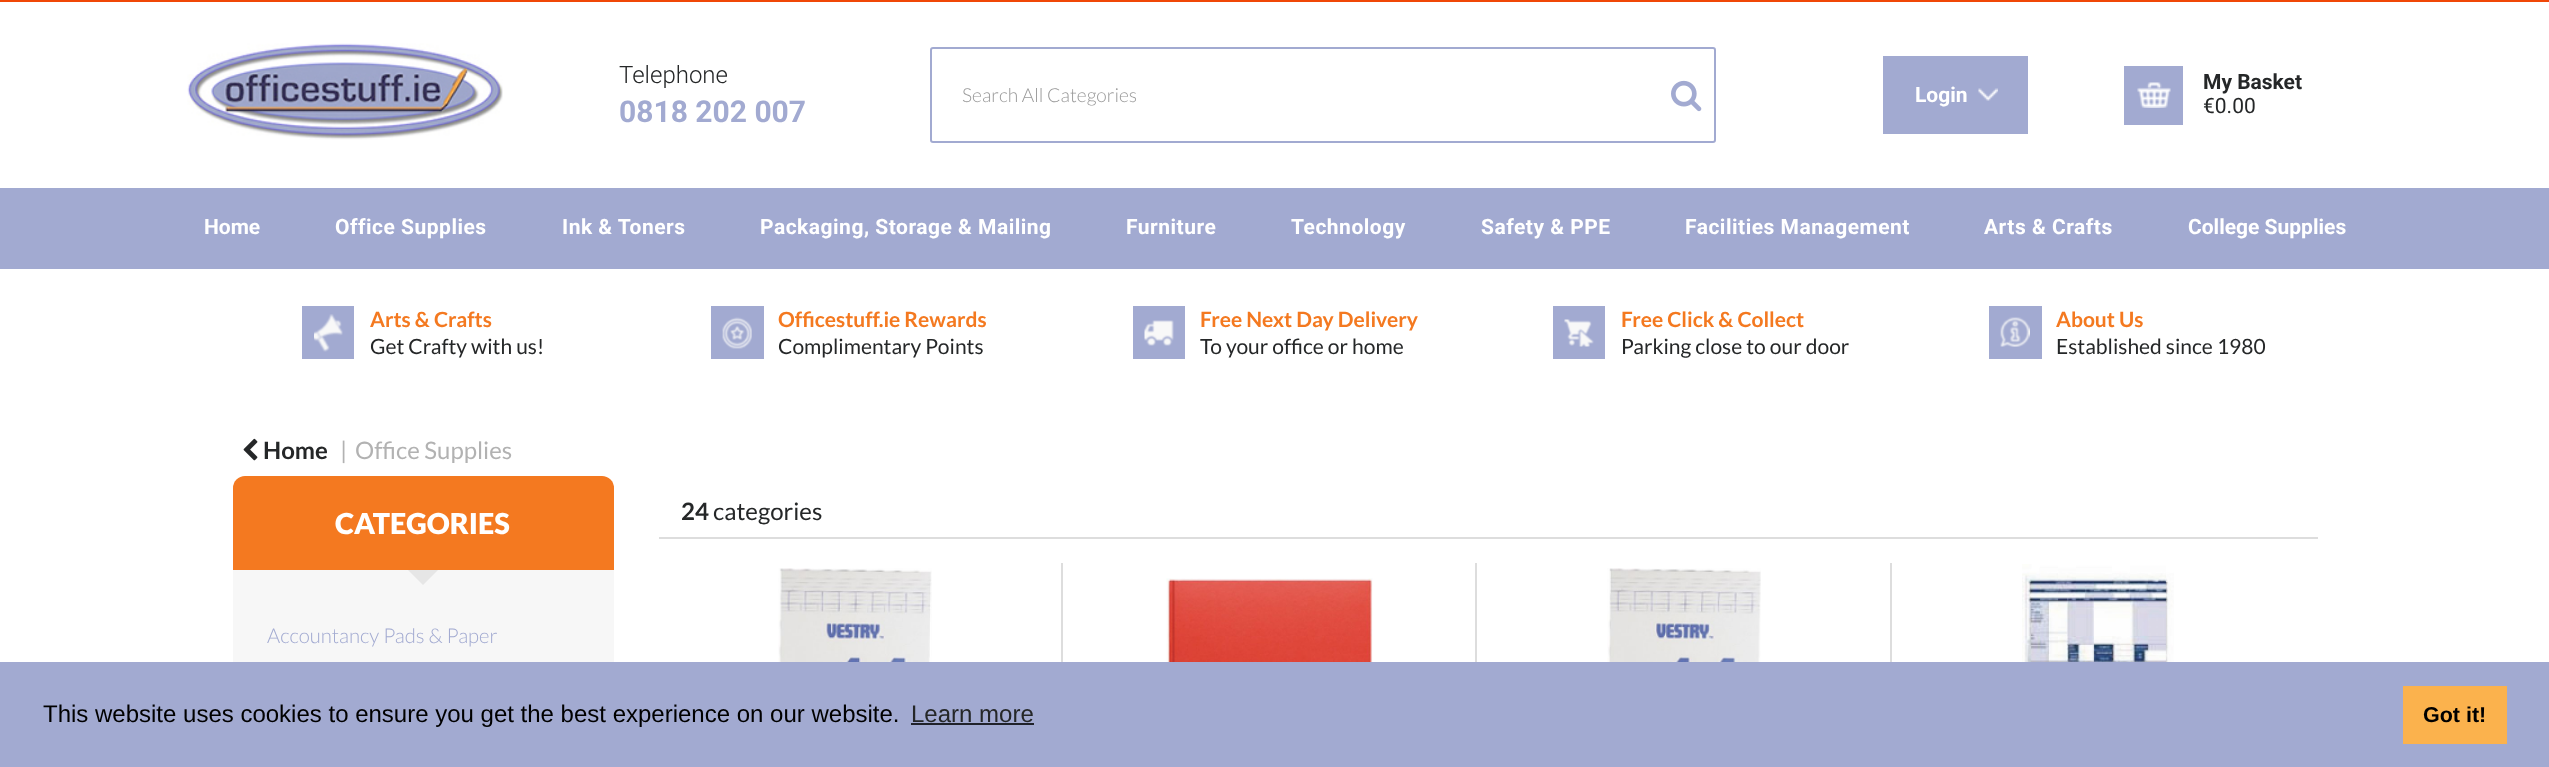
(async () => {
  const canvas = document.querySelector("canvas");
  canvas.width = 2549;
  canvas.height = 767;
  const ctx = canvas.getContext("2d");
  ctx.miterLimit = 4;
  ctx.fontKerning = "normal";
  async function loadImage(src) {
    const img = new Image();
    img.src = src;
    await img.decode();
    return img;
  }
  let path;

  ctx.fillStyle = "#ffffff";
  ctx.fillRect(0, 0, 2549, 767);
  ctx.fillStyle = "#f04707";
  ctx.fillRect(0, 0, 2549, 2);
  ctx.drawImage(await loadImage("img/1.png"), 187, 43, 316, 97);
  ctx.beginPath();
  ctx.roundRect(931, 48, 784, 94, 2);
  ctx.strokeStyle = "#a2aad1";
  ctx.lineWidth = 2;
  ctx.stroke();
  ctx.drawImage(await loadImage("img/2.png"), 1671, 80, 31, 32);
  ctx.fillStyle = "#a2aad1";
  ctx.fillRect(1883, 56, 145, 78);
  ctx.drawImage(await loadImage("img/3.png"), 1978, 88, 20, 13);
  ctx.fillRect(2124, 66, 59, 59);
  ctx.drawImage(await loadImage("img/4.png"), 2137, 82, 34, 26);
  ctx.fillRect(0, 188, 2549, 81);
  ctx.fillRect(302, 306, 52, 53);
  ctx.drawImage(await loadImage("img/5.png"), 314, 314, 29, 38);
  ctx.fillRect(711, 306, 53, 53);
  ctx.drawImage(await loadImage("img/6.png"), 722, 317, 30, 32);
  ctx.fillRect(1133, 306, 52, 53);
  ctx.drawImage(await loadImage("img/7.png"), 1144, 320, 30, 26);
  ctx.fillRect(1553, 306, 52, 53);
  ctx.drawImage(await loadImage("img/8.png"), 1564, 319, 30, 28);
  ctx.fillRect(1989, 306, 53, 53);
  ctx.drawImage(await loadImage("img/9.png"), 2000, 317, 30, 30);
  ctx.drawImage(await loadImage("img/10.png"), 243, 438, 15, 23);
  ctx.fillStyle = "#f7f7f7";
  ctx.fillRect(233, 570, 381, 92);
  ctx.fillStyle = "#f47920";
  ctx.beginPath();
  ctx.roundRect(233, 476, 381, 94, [12, 12, 0, 0]);
  ctx.fill();
  ctx.fillStyle = "#e6e6e6";
  path = new Path2D("M408 570H438L423 585Z");
  ctx.fill(path);
  ctx.fillStyle = "#dddddd";
  ctx.fillRect(659, 537, 1659, 2);
  ctx.fillRect(1061, 563, 2, 99);
  ctx.drawImage(await loadImage("img/11.png"), 778, 568, 154, 94);
  ctx.fillRect(1475, 563, 2, 99);
  ctx.drawImage(await loadImage("img/12.png"), 1166, 578, 207, 84);
  ctx.fillRect(1890, 563, 2, 99);
  ctx.drawImage(await loadImage("img/13.png"), 1607, 568, 154, 94);
  ctx.drawImage(await loadImage("img/14.png"), 2022, 564, 152, 98);
  for (const [x, y, w, h, color] of [
    [0, 662, 2549, 105, "#a2aad1"],
    [911, 723, 123, 2, "#20222a"],
    [2403, 686, 104, 58, "#fbb24d"],
  ]) {
    ctx.fillStyle = color;
    ctx.fillRect(x, y, w, h);
  }
  ctx.font = "300 24px Roboto";
  ctx.fillStyle = "#252728";
  ctx.fillText("Telephone", 619, 83);
  ctx.font = "bold 30px Roboto";
  ctx.fillStyle = "#a2aad1";
  ctx.fillText("0818 202 007", 619, 122);
  ctx.font = "300 19.25px Lato";
  ctx.fillStyle = "#999999";
  ctx.fillText("Search All Categories", 962, 102);
  ctx.font = "bold 21px Roboto";
  ctx.fillStyle = "#ffffff";
  ctx.fillText("Login", 1915, 102);
  ctx.fillStyle = "#252728";
  ctx.fillText("My Basket", 2203, 89);
  ctx.font = "21px Roboto";
  ctx.fillText("€0.00", 2203, 113);
  ctx.font = "bold 21px Roboto";
  ctx.fillStyle = "#ffffff";
  ctx.fillText("Home", 204, 234);
  ctx.letterSpacing = "0.5px";
  for (const [text, x, y] of [
    ["Office Supplies", 335, 234],
    ["Ink & Toners", 562, 234],
    ["Packaging, Storage & Mailing", 760, 234],
    ["Furniture", 1126, 234],
    ["Technology", 1291, 234],
    ["Safety & PPE", 1481, 234],
    ["Facilities Management", 1685, 234],
    ["Arts & Crafts", 1984, 234],
  ]) {
    ctx.fillText(text, x, y);
  }
  ctx.letterSpacing = "0px";
  ctx.fillText("College Supplies", 2188, 234);
  ctx.font = "bold 21px Lato";
  ctx.fillStyle = "#f47920";
  ctx.fillText("Arts & Crafts", 370, 327);
  ctx.font = "21px Lato";
  ctx.fillStyle = "#252728";
  ctx.fillText("Get Crafty with us!", 370, 354);
  ctx.font = "bold 21px Lato";
  ctx.fillStyle = "#f47920";
  ctx.fillText("Officestuff.ie Rewards", 778, 327);
  ctx.font = "21px Lato";
  ctx.fillStyle = "#252728";
  ctx.fillText("Complimentary Points", 778, 354);
  ctx.font = "bold 21px Lato";
  ctx.fillStyle = "#f47920";
  ctx.fillText("Free Next Day Delivery", 1200, 327);
  ctx.font = "21px Lato";
  ctx.fillStyle = "#252728";
  ctx.fillText("To your office or home", 1200, 354);
  ctx.font = "bold 21px Lato";
  ctx.fillStyle = "#f47920";
  ctx.fillText("Free Click & Collect", 1621, 327);
  ctx.font = "21px Lato";
  ctx.fillStyle = "#252728";
  ctx.fillText("Parking close to our door", 1621, 354);
  ctx.font = "bold 21px Lato";
  ctx.fillStyle = "#f47920";
  ctx.fillText("About Us", 2056, 327);
  ctx.font = "21px Lato";
  ctx.fillStyle = "#252728";
  ctx.fillText("Established since 1980", 2056, 354);
  ctx.font = "bold 24px Lato";
  ctx.fillText("Home", 263, 459);
  ctx.font = "24px Lato";
  ctx.fillStyle = "#b2b2b2";
  ctx.fillText("|", 340, 459);
  ctx.fillText("Office Supplies", 355, 459);
  ctx.font = "900 28.75px Lato";
  ctx.fillStyle = "#ffffff";
  ctx.fillText("CATEGORIES", 335, 534);
  ctx.font = "300 20.4px Lato";
  ctx.fillStyle = "#a2aad1";
  ctx.fillText("Accountancy Pads & Paper", 267, 643);
  ctx.font = "bold 24px Lato";
  ctx.fillStyle = "#252728";
  ctx.fillText("24", 681, 520);
  ctx.font = "24px Lato";
  ctx.fillText("categories", 713, 520);
  ctx.font = "24px Liberation Sans";
  ctx.fillStyle = "#000000";
  ctx.fillText("This website uses cookies to ensure you get the best experience on our website.", 43, 722);
  ctx.fillStyle = "#252728";
  ctx.fillText("Learn more", 911, 722);
  ctx.font = "bold 21.5px Liberation Sans";
  ctx.fillStyle = "#000000";
  ctx.fillText("Got it!", 2423, 722);
})();
